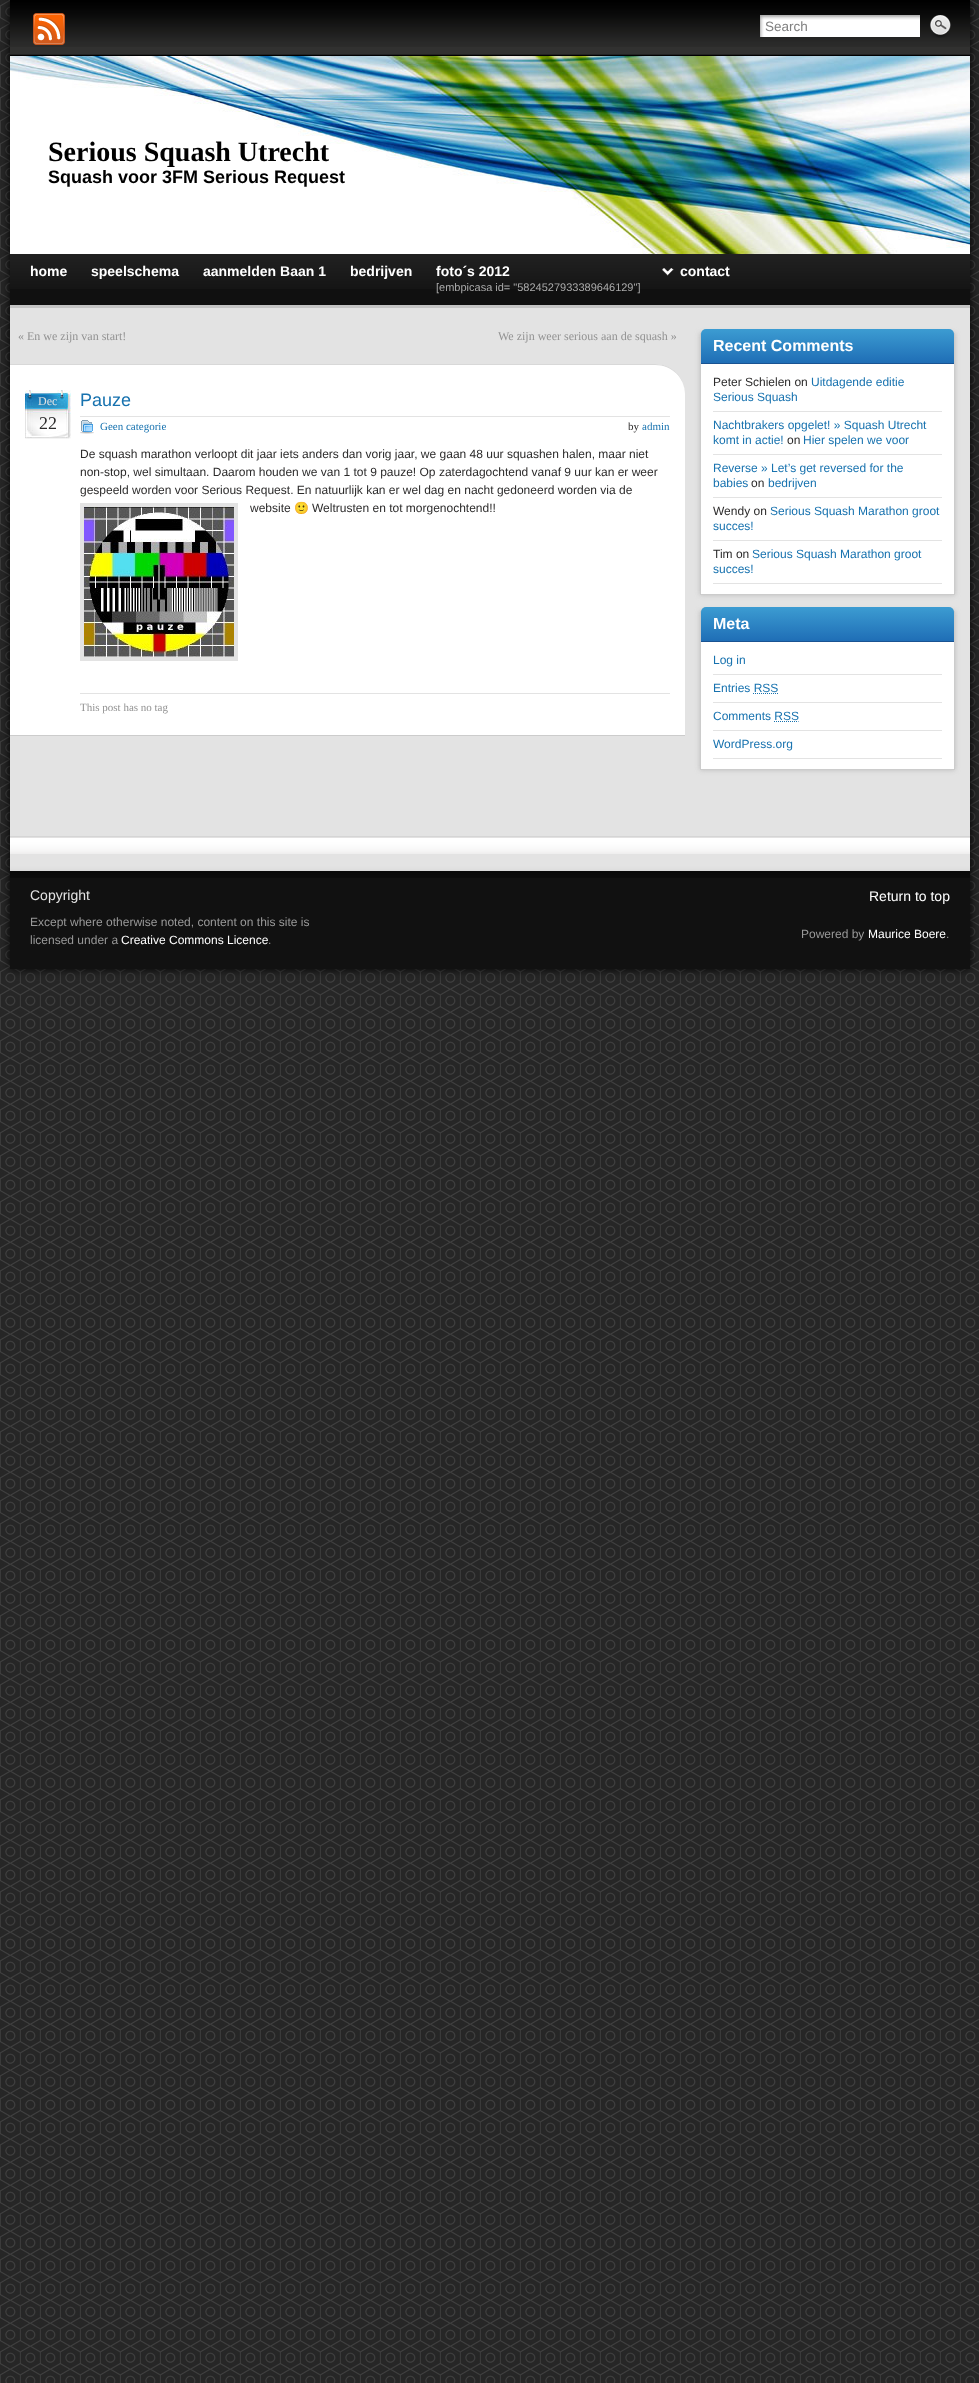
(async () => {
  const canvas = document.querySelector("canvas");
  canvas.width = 979;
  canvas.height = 2383;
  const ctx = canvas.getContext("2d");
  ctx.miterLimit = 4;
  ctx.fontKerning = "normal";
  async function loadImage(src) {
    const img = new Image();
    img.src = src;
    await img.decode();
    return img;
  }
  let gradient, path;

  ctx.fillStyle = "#ffffff";
  ctx.fillRect(0, 0, 979, 2383);
  ctx.drawImage(await loadImage("img/1.png"), 0, 0, 979, 2383);
  ctx.fillStyle = "#000000";
  ctx.filter = "blur(5px)";
  ctx.beginPath();
  ctx.rect(10, 0, 960, 969);
  ctx.fill();
  ctx.filter = "none";
  ctx.fillStyle = "#313130";
  ctx.fillRect(10, 47, 960, 7);
  ctx.drawImage(await loadImage("img/2.png"), 10, 0, 960, 47);
  ctx.fillStyle = "#222222";
  ctx.fillRect(10, 54, 960, 1);
  ctx.drawImage(await loadImage("img/3.png"), 33, 13, 32, 32);
  ctx.drawImage(await loadImage("img/4.png"), 760, 15, 160, 22);
  ctx.drawImage(await loadImage("img/5.png"), 930, 15, 21, 23);
  ctx.drawImage(await loadImage("img/6.png"), 10, 56, 960, 198);
  ctx.fillStyle = "#000000";
  ctx.fillRect(10, 55, 960, 1);
  ctx.fillStyle = "#101010";
  ctx.fillRect(10, 289, 960, 16);
  ctx.drawImage(await loadImage("img/7.png"), 10, 254, 960, 35);
  ctx.drawImage(await loadImage("img/8.png"), 662, 268, 12, 8);
  ctx.fillStyle = "#c4c4c4";
  ctx.fillRect(10, 305, 960, 3);
  ctx.fillStyle = "#e3e3e3";
  ctx.fillRect(10, 308, 960, 528);
  ctx.fillStyle = "#ffffff";
  ctx.beginPath();
  ctx.roundRect(10, 364, 675, 372, [0, 30, 0, 0]);
  ctx.fill();
  ctx.fillStyle = "#d8d8d8";
  path = new Path2D("M10 364V365H655C672 365 685 378 685 394C685 377 672 364 655 364Z");
  ctx.fill(path);
  ctx.fillStyle = "#cccccc";
  ctx.fillRect(10, 735, 675, 1);
  ctx.drawImage(await loadImage("img/9.png"), 25, 390, 46, 49);
  ctx.fillStyle = "#e3e3e3";
  ctx.fillRect(80, 416, 590, 1);
  ctx.drawImage(await loadImage("img/10.png"), 80, 420, 14, 14);
  ctx.strokeStyle = "#e3e3e3";
  ctx.lineWidth = 4;
  ctx.strokeRect(82, 505, 154, 154);
  ctx.drawImage(await loadImage("img/11.png"), 84, 507, 150, 150);
  ctx.fillRect(80, 693, 590, 1);
  ctx.fillStyle = "#bbbbbb";
  ctx.filter = "blur(2.5px)";
  ctx.beginPath();
  ctx.rect(700, 333, 255, 262);
  ctx.fill();
  ctx.filter = "none";
  ctx.fillStyle = "#ffffff";
  ctx.fillRect(701, 364, 253, 230);
  ctx.strokeStyle = "#cccccc";
  ctx.lineWidth = 1;
  ctx.strokeRect(700.5, 333.5, 254, 261);
  gradient = ctx.createLinearGradient(828, 329, 828, 363);
  gradient.addColorStop(0, "#3c9cd2");
  gradient.addColorStop(1, "#1f6eb6");
  ctx.fillStyle = gradient;
  ctx.beginPath();
  ctx.roundRect(701, 329, 253, 34, [5, 5, 0, 0]);
  ctx.fill();
  for (const [x, y, w, h, color] of [
    [701, 363, 253, 1, "#195392"],
    [713, 411, 229, 1, "#e3e3e3"],
    [713, 454, 229, 1, "#e3e3e3"],
    [713, 497, 229, 1, "#e3e3e3"],
    [713, 540, 229, 1, "#e3e3e3"],
    [713, 583, 229, 1, "#e3e3e3"],
  ]) {
    ctx.fillStyle = color;
    ctx.fillRect(x, y, w, h);
  }
  ctx.fillStyle = "#bbbbbb";
  ctx.filter = "blur(2.5px)";
  ctx.beginPath();
  ctx.rect(700, 611, 255, 159);
  ctx.fill();
  ctx.filter = "none";
  ctx.fillStyle = "#ffffff";
  ctx.fillRect(701, 642, 253, 127);
  ctx.strokeRect(700.5, 611.5, 254, 158);
  gradient = ctx.createLinearGradient(828, 607, 828, 641);
  gradient.addColorStop(0, "#3c9cd2");
  gradient.addColorStop(1, "#1f6eb6");
  ctx.fillStyle = gradient;
  ctx.beginPath();
  ctx.roundRect(701, 607, 253, 34, [5, 5, 0, 0]);
  ctx.fill();
  for (const [x, y, w, h, color] of [
    [701, 641, 253, 1, "#195392"],
    [713, 674, 229, 1, "#e3e3e3"],
    [713, 702, 229, 1, "#e3e3e3"],
  ]) {
    ctx.fillStyle = color;
    ctx.fillRect(x, y, w, h);
  }
  path = new Path2D("M753 693.5H778");
  ctx.strokeStyle = "#1772af";
  ctx.setLineDash([1, 1]);
  ctx.stroke(path);
  ctx.fillRect(713, 730, 229, 1);
  path = new Path2D("M774 721.5H798.5");
  ctx.stroke(path);
  ctx.fillRect(713, 758, 229, 1);
  ctx.fillStyle = "#111111";
  ctx.fillRect(10, 878, 960, 91);
  ctx.drawImage(await loadImage("img/12.png"), 10, 837, 960, 41);
  ctx.fillStyle = "#d5d5d5";
  ctx.fillRect(10, 836, 960, 1);
  ctx.font = "13.5px Liberation Sans";
  ctx.fillStyle = "#808080";
  ctx.fillText("Search", 765, 31);
  ctx.font = "bold 28px Liberation Serif";
  ctx.fillStyle = "#000000";
  ctx.fillText("Serious Squash Utrecht", 48, 161);
  ctx.font = "bold 18px Liberation Sans";
  ctx.fillText("Squash voor 3FM Serious Request", 48, 183);
  ctx.font = "bold 14px Liberation Sans";
  ctx.fillStyle = "#ffffff";
  for (const [text, x, y] of [
    ["home", 30, 276],
    ["speelschema", 91, 276],
    ["aanmelden Baan 1", 203, 276],
    ["bedrijven", 350, 276],
    ["foto´s 2012", 436, 276],
  ]) {
    ctx.fillText(text, x, y);
  }
  ctx.font = "11px Liberation Sans";
  ctx.fillStyle = "#aaaaaa";
  ctx.fillText("[embpicasa id= \"5824527933389646129\"]", 436, 291);
  ctx.font = "bold 14px Liberation Sans";
  ctx.fillStyle = "#ffffff";
  ctx.fillText("contact", 680, 276);
  ctx.font = "12px Liberation Serif";
  ctx.fillStyle = "#929292";
  ctx.fillText("« En we zijn van start!", 18, 340);
  ctx.fillText("We zijn weer serious aan de squash »", 498, 340);
  ctx.fillStyle = "#e3e3e3";
  ctx.fillText("Dec", 38, 405);
  ctx.font = "18px Liberation Serif";
  ctx.fillStyle = "#2c2b2b";
  ctx.fillText("22", 39, 429);
  ctx.font = "18px Liberation Sans";
  ctx.fillStyle = "#1772af";
  ctx.fillText("Pauze", 80, 406);
  ctx.font = "11px Liberation Serif";
  ctx.fillText("Geen categorie", 100, 430);
  ctx.fillStyle = "#2c2b2b";
  ctx.fillText("by", 628, 430);
  ctx.fillStyle = "#1772af";
  ctx.fillText("admin", 642, 430);
  ctx.font = "12px Liberation Sans";
  ctx.fillStyle = "#2c2b2b";
  for (const [text, x, y] of [
    ["De squash marathon verloopt dit jaar iets anders dan vorig jaar, we gaan 48 uur squashen halen, maar niet", 80, 458],
    ["non-stop, wel simultaan. Daarom houden we van 1 tot 9 pauze! Op zaterdagochtend vanaf 9 uur kan er weer", 80, 476],
    ["gespeeld worden voor Serious Request. En natuurlijk kan er wel dag en nacht gedoneerd worden via de", 80, 494],
    ["website", 250, 512],
  ]) {
    ctx.fillText(text, x, y);
  }
  ctx.font = "12px Noto Color Emoji";
  ctx.fillText("🙂", 294, 512);
  ctx.font = "12px Liberation Sans";
  ctx.fillText("Weltrusten en tot morgenochtend!!", 312, 512);
  ctx.font = "11px Liberation Serif";
  ctx.fillStyle = "#929292";
  ctx.fillText("This post has no tag", 80, 711);
  ctx.font = "bold 16px Liberation Sans";
  ctx.fillStyle = "#ffffff";
  ctx.fillText("Recent Comments", 713, 351);
  ctx.font = "12px Liberation Sans";
  ctx.fillStyle = "#2c2b2b";
  ctx.fillText("Peter Schielen on", 713, 386);
  ctx.fillStyle = "#1772af";
  for (const [text, x, y] of [
    ["Uitdagende editie", 811, 386],
    ["Serious Squash", 713, 401],
    ["Nachtbrakers opgelet! » Squash Utrecht", 713, 429],
    ["komt in actie!", 713, 444],
  ]) {
    ctx.fillText(text, x, y);
  }
  ctx.fillStyle = "#2c2b2b";
  ctx.fillText("on", 787, 444);
  ctx.fillStyle = "#1772af";
  for (const [text, x, y] of [
    ["Hier spelen we voor", 803, 444],
    ["Reverse » Let’s get reversed for the", 713, 472],
    ["babies", 713, 487],
  ]) {
    ctx.fillText(text, x, y);
  }
  ctx.fillStyle = "#2c2b2b";
  ctx.fillText("on", 751, 487);
  ctx.fillStyle = "#1772af";
  ctx.fillText("bedrijven", 768, 487);
  ctx.fillStyle = "#2c2b2b";
  ctx.fillText("Wendy on", 713, 515);
  ctx.fillStyle = "#1772af";
  ctx.fillText("Serious Squash Marathon groot", 770, 515);
  ctx.fillText("succes!", 713, 530);
  ctx.fillStyle = "#2c2b2b";
  ctx.fillText("Tim on", 713, 558);
  ctx.fillStyle = "#1772af";
  ctx.fillText("Serious Squash Marathon groot", 752, 558);
  ctx.fillText("succes!", 713, 573);
  ctx.font = "bold 16px Liberation Sans";
  ctx.fillStyle = "#ffffff";
  ctx.fillText("Meta", 713, 629);
  ctx.font = "12px Liberation Sans";
  ctx.fillStyle = "#1772af";
  for (const [text, x, y] of [
    ["Log in", 713, 664],
    ["Entries RSS", 713, 692],
    ["Comments RSS", 713, 720],
    ["WordPress.org", 713, 748],
  ]) {
    ctx.fillText(text, x, y);
  }
  ctx.font = "14px Liberation Sans";
  ctx.fillStyle = "#e3e3e3";
  ctx.fillText("Copyright", 30, 900);
  ctx.font = "12px Liberation Sans";
  ctx.fillStyle = "#999999";
  ctx.fillText("Except where otherwise noted, content on this site is", 30, 926);
  ctx.fillText("licensed under a", 30, 944);
  ctx.fillStyle = "#ffffff";
  ctx.fillText("Creative Commons Licence", 121, 944);
  ctx.fillStyle = "#999999";
  ctx.fillText(".", 268, 944);
  ctx.font = "14px Liberation Sans";
  ctx.fillStyle = "#ffffff";
  ctx.fillText("Return to top", 869, 901);
  ctx.font = "12px Liberation Sans";
  ctx.fillStyle = "#999999";
  ctx.fillText("Powered by", 801, 938);
  ctx.fillStyle = "#ffffff";
  ctx.fillText("Maurice Boere", 868, 938);
  ctx.fillStyle = "#999999";
  ctx.fillText(".", 946, 938);
})();
